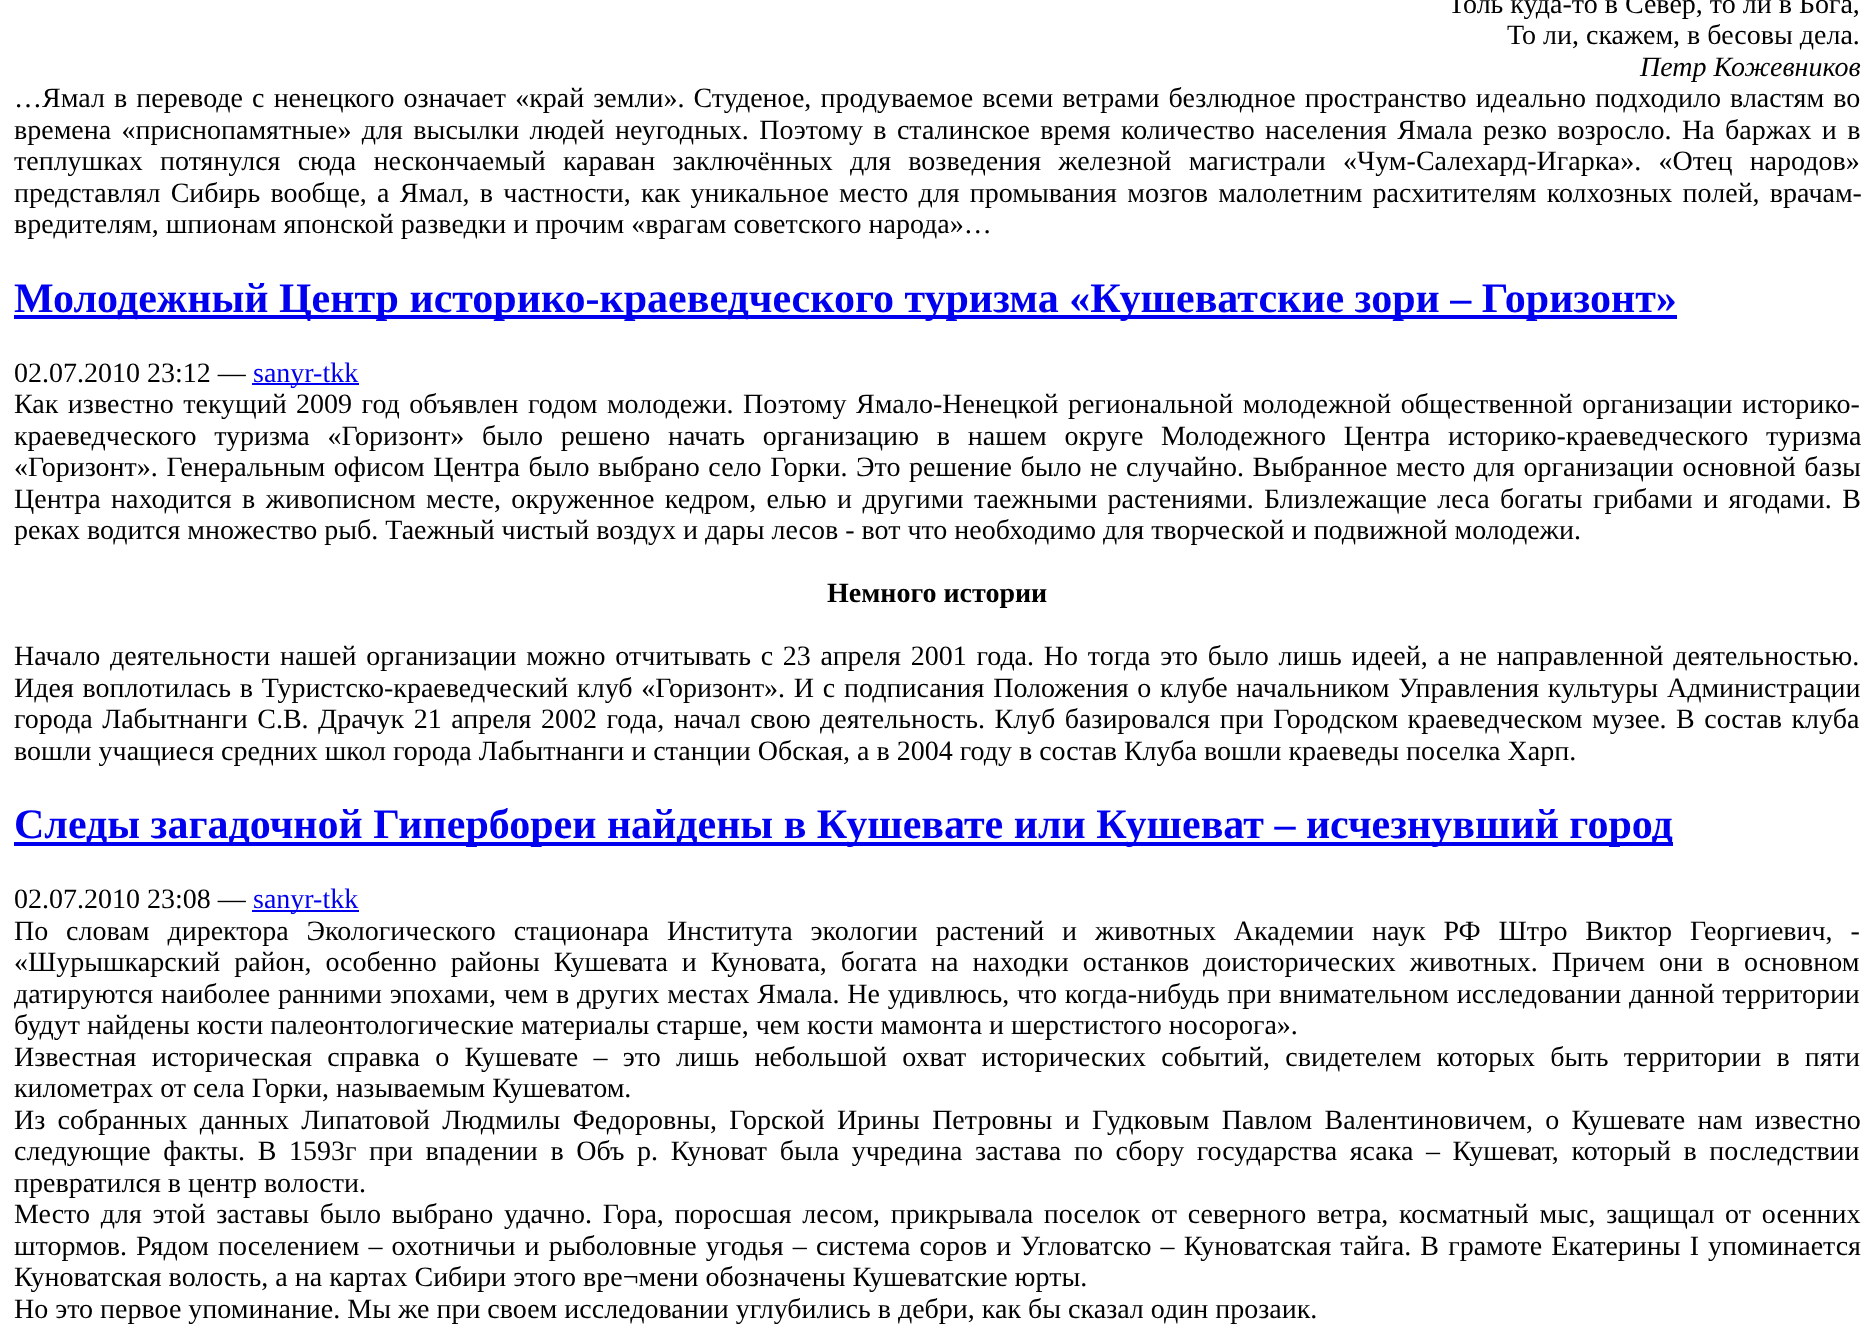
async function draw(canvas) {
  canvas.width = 1873;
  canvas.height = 1335;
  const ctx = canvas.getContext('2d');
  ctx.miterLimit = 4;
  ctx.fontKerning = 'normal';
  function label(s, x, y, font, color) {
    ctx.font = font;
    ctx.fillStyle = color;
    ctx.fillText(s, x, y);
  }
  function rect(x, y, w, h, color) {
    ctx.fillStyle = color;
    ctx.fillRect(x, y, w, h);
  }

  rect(0, 0, 1873, 1335, '#fff');
  label('Толь куда-то в Север, то ли в Бога,', 1448, 13, '28px Liberation Serif', '#000');
  label('То ли, скажем, в бесовы дела.', 1507, 44, '28px Liberation Serif', '#000');
  label('Петр Кожевников', 1640, 76, 'italic 28px Liberation Serif', '#000');
  ctx.wordSpacing = '2.1px';
  label('…Ямал в переводе с ненецкого означает «край земли». Студеное, продуваемое всеми ветрами безлюдное пространство идеально подходило властям во', 14, 107, '28px Liberation Serif', '#000');
  ctx.wordSpacing = '3.4px';
  label('времена «приснопамятные» для высылки людей неугодных. Поэтому в сталинское время количество населения Ямала резко возросло. На баржах и в', 14, 139, '28px Liberation Serif', '#000');
  ctx.wordSpacing = '10.25px';
  label('теплушках потянулся сюда нескончаемый караван заключённых для возведения железной магистрали «Чум-Салехард-Игарка». «Отец народов»', 14, 170, '28px Liberation Serif', '#000');
  ctx.wordSpacing = '3.25px';
  label('представлял Сибирь вообще, а Ямал, в частности, как уникальное место для промывания мозгов малолетним расхитителям колхозных полей, врачам-', 14, 202, '28px Liberation Serif', '#000');
  ctx.wordSpacing = '0px';
  label('вредителям, шпионам японской разведки и прочим «врагам советского народа»…', 14, 233, '28px Liberation Serif', '#000');
  rect(14, 315, 1663, 4, '#00e');
  label('Молодежный Центр историко-краеведческого туризма «Кушеватские зори – Горизонт»', 14, 312, 'bold 42px Liberation Serif', '#00e');
  label('02.07.2010 23:12 —', 14, 382, '28px Liberation Serif', '#000');
  rect(252, 383, 107, 2, '#00e');
  label('sanyr-tkk', 253, 382, '28px Liberation Serif', '#00e');
  ctx.wordSpacing = '2.5px';
  label('Как известно текущий 2009 год объявлен годом молодежи. Поэтому Ямало-Ненецкой региональной молодежной общественной организации историко-', 14, 413, '28px Liberation Serif', '#000');
  ctx.wordSpacing = '10.75px';
  label('краеведческого туризма «Горизонт» было решено начать организацию в нашем округе Молодежного Центра историко-краеведческого туризма', 14, 445, '28px Liberation Serif', '#000');
  ctx.wordSpacing = '1.6px';
  label('«Горизонт». Генеральным офисом Центра было выбрано село Горки. Это решение было не случайно. Выбранное место для организации основной базы', 14, 476, '28px Liberation Serif', '#000');
  ctx.wordSpacing = '3.4px';
  label('Центра находится в живописном месте, окруженное кедром, елью и другими таежными растениями. Близлежащие леса богаты грибами и ягодами. В', 14, 508, '28px Liberation Serif', '#000');
  ctx.wordSpacing = '0px';
  label('реках водится множество рыб. Таежный чистый воздух и дары лесов - вот что необходимо для творческой и подвижной молодежи.', 14, 539, '28px Liberation Serif', '#000');
  label('Немного истории', 827, 602, 'bold 28px Liberation Serif', '#000');
  ctx.wordSpacing = '2.75px';
  label('Начало деятельности нашей организации можно отчитывать с 23 апреля 2001 года. Но тогда это было лишь идеей, а не направленной деятельностью.', 14, 665, '28px Liberation Serif', '#000');
  ctx.wordSpacing = '1.75px';
  label('Идея воплотилась в Туристско-краеведческий клуб «Горизонт». И с подписания Положения о клубе начальником Управления культуры Администрации', 14, 697, '28px Liberation Serif', '#000');
  ctx.wordSpacing = '2.5px';
  label('города Лабытнанги С.В. Драчук 21 апреля 2002 года, начал свою деятельность. Клуб базировался при Городском краеведческом музее. В состав клуба', 14, 728, '28px Liberation Serif', '#000');
  ctx.wordSpacing = '0px';
  label('вошли учащиеся средних школ города Лабытнанги и станции Обская, а в 2004 году в состав Клуба вошли краеведы поселка Харп.', 14, 760, '28px Liberation Serif', '#000');
  rect(14, 842, 1659, 4, '#00e');
  label('Следы загадочной Гипербореи найдены в Кушевате или Кушеват – исчезнувший город', 14, 838, 'bold 42px Liberation Serif', '#00e');
  label('02.07.2010 23:08 —', 14, 908, '28px Liberation Serif', '#000');
  rect(252, 910, 107, 2, '#00e');
  label('sanyr-tkk', 253, 908, '28px Liberation Serif', '#00e');
  ctx.wordSpacing = '10.9px';
  label('По словам директора Экологического стационара Института экологии растений и животных Академии наук РФ Штро Виктор Георгиевич, -', 14, 940, '28px Liberation Serif', '#000');
  ctx.wordSpacing = '6.9px';
  label('«Шурышкарский район, особенно районы Кушевата и Куновата, богата на находки останков доисторических животных. Причем они в основном', 14, 971, '28px Liberation Serif', '#000');
  ctx.wordSpacing = '0.8px';
  label('датируются наиболее ранними эпохами,', 14, 1003, '28px Liberation Serif', '#000');
  label('чем в других местах Ямала. Не удивлюсь, что когда-нибудь при внимательном исследовании данной территории', 504, 1003, '28px Liberation Serif', '#000');
  ctx.wordSpacing = '0px';
  label('будут найдены кости палеонтологические материалы старше, чем кости мамонта и шерстистого носорога».', 14, 1034, '28px Liberation Serif', '#000');
  ctx.wordSpacing = '8.25px';
  label('Известная историческая справка о Кушевате – это лишь небольшой охват исторических событий, свидетелем которых быть территории в пяти', 14, 1066, '28px Liberation Serif', '#000');
  ctx.wordSpacing = '0px';
  label('километрах от села Горки, называемым Кушеватом.', 14, 1097, '28px Liberation Serif', '#000');
  ctx.wordSpacing = '5.25px';
  label('Из собранных данных Липатовой Людмилы Федоровны, Горской Ирины Петровны и Гудковым Павлом Валентиновичем, о Кушевате нам известно', 14, 1129, '28px Liberation Serif', '#000');
  ctx.wordSpacing = '5.6px';
  label('следующие факты. В 1593г при впадении в Объ р. Куноват была учредина застава по сбору государства ясака – Кушеват, который в последствии', 14, 1160, '28px Liberation Serif', '#000');
  ctx.wordSpacing = '0px';
  label('превратился в центр волости.', 14, 1192, '28px Liberation Serif', '#000');
  ctx.wordSpacing = '3.75px';
  label('Место для этой заставы было выбрано удачно. Гора, поросшая лесом, прикрывала поселок от северного ветра, косматный мыс, защищал от осенних', 14, 1223, '28px Liberation Serif', '#000');
  ctx.wordSpacing = '2.1px';
  label('штормов. Рядом поселением – охотничьи и рыболовные угодья – система соров и Угловатско – Куноватская тайга. В грамоте Екатерины I упоминается', 14, 1255, '28px Liberation Serif', '#000');
  ctx.wordSpacing = '0px';
  label('Куноватская волость, а на картах Сибири этого вре¬мени обозначены Кушеватские юрты.', 14, 1286, '28px Liberation Serif', '#000');
  label('Но это первое упоминание. Мы же при своем исследовании углубились в дебри, как бы сказал один прозаик.', 14, 1318, '28px Liberation Serif', '#000');
}

draw(document.querySelector('canvas'));
